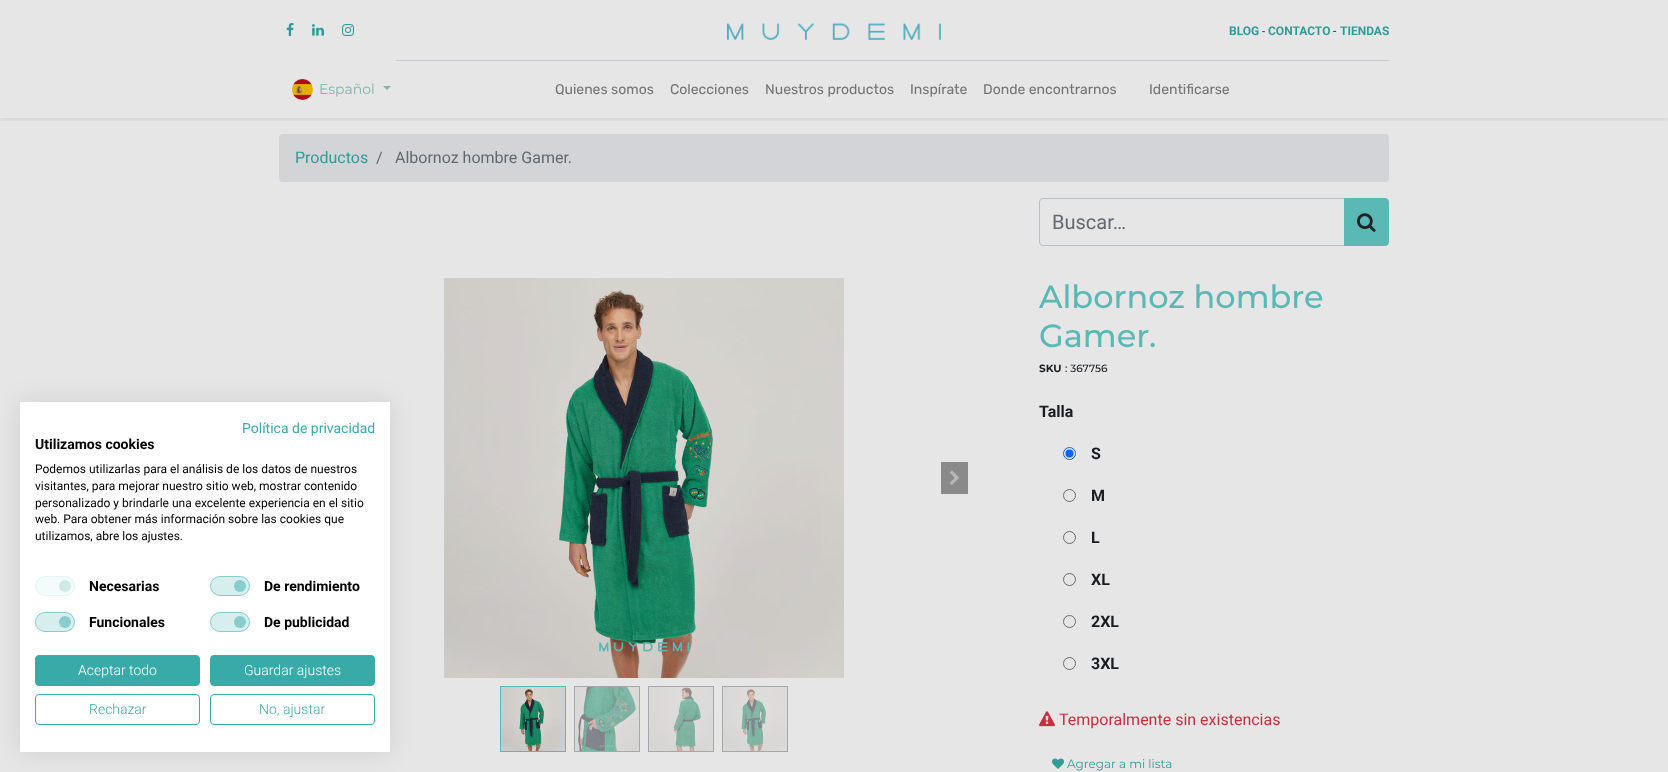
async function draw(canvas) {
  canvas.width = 1668;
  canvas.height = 772;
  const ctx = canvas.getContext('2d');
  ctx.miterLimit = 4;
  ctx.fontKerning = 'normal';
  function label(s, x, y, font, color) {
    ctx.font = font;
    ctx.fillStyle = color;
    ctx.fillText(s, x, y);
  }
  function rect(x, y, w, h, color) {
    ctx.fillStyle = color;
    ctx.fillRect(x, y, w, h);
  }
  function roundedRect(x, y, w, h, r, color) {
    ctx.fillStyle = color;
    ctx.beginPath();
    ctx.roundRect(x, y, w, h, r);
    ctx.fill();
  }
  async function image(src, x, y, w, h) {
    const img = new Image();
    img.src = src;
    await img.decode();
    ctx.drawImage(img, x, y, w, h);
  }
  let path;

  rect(0, 0, 1668, 772, '#e6e6e6');
  ctx.fillStyle = '#0000001a';
  ctx.filter = 'blur(12px)';
  ctx.beginPath();
  ctx.rect(20, 402, 370, 350);
  ctx.fill();
  ctx.filter = 'none';
  rect(20, 402, 370, 350, '#fff');
  label('Política de privacidad', 242, 433, '14px Roboto', '#38aba8');
  label('Utilizamos cookies', 35, 449, 'bold 14px Roboto', '#000');
  label('Podemos utilizarlas para el análisis de los datos de nuestros', 35, 473, '12px Roboto', '#000');
  label('visitantes, para mejorar nuestro sitio web, mostrar contenido', 35, 490, '12px Roboto', '#000');
  label('personalizado y brindarle una excelente experiencia en el sitio', 35, 507, '12px Roboto', '#000');
  label('web. Para obtener más información sobre las cookies que', 35, 523, '12px Roboto', '#000');
  label('utilizamos, abre los ajustes.', 35, 540, '12px Roboto', '#000');
  roundedRect(35, 576, 40, 20, 10, '#f5fbfb');
  ctx.fillStyle = '#cdeae9';
  ctx.beginPath();
  ctx.arc(65, 586, 6, 0, 2 * Math.PI);
  ctx.fill();
  ctx.beginPath();
  ctx.roundRect(35.5, 576.5, 39, 19, 9.5);
  ctx.strokeStyle = '#e6f5f4';
  ctx.stroke();
  label('Necesarias', 89, 591, 'bold 14px Roboto', '#000');
  roundedRect(210, 576, 40, 20, 10, '#d7eeee');
  ctx.fillStyle = '#88cdcb';
  ctx.beginPath();
  ctx.arc(240, 586, 6, 0, 2 * Math.PI);
  ctx.fill();
  ctx.beginPath();
  ctx.roundRect(210.5, 576.5, 39, 19, 9.5);
  ctx.strokeStyle = '#38aba880';
  ctx.stroke();
  label('De rendimiento', 264, 591, 'bold 14px Roboto', '#000');
  roundedRect(35, 612, 40, 20, 10, '#d7eeee');
  ctx.fillStyle = '#88cdcb';
  ctx.beginPath();
  ctx.arc(65, 622, 6, 0, 2 * Math.PI);
  ctx.fill();
  ctx.beginPath();
  ctx.roundRect(35.5, 612.5, 39, 19, 9.5);
  ctx.stroke();
  label('Funcionales', 89, 627, 'bold 14px Roboto', '#000');
  roundedRect(210, 612, 40, 20, 10, '#d7eeee');
  ctx.fillStyle = '#88cdcb';
  ctx.beginPath();
  ctx.arc(240, 622, 6, 0, 2 * Math.PI);
  ctx.fill();
  ctx.beginPath();
  ctx.roundRect(210.5, 612.5, 39, 19, 9.5);
  ctx.stroke();
  label('De publicidad', 264, 627, 'bold 14px Roboto', '#000');
  ctx.fillStyle = '#38aba8';
  ctx.beginPath();
  ctx.roundRect(35.5, 655.5, 164, 30, 3.5);
  ctx.fill();
  ctx.strokeStyle = '#38aba8';
  ctx.stroke();
  label('Aceptar todo', 78, 675, '300 14px Roboto', '#fff');
  ctx.fillStyle = '#38aba8';
  ctx.beginPath();
  ctx.roundRect(210.5, 655.5, 164, 30, 3.5);
  ctx.fill();
  ctx.stroke();
  label('Guardar ajustes', 244, 675, '300 14px Roboto', '#fff');
  ctx.beginPath();
  ctx.roundRect(35.5, 694.5, 164, 30, 3.5);
  ctx.stroke();
  label('Rechazar', 89, 714, '300 14px Roboto', '#38aba8');
  ctx.beginPath();
  ctx.roundRect(210.5, 694.5, 164, 30, 3.5);
  ctx.stroke();
  label('No, ajustar', 259, 714, '300 14px Roboto', '#38aba8');
  ctx.save();
  ctx.beginPath();
  ctx.rect(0, 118, 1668, 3);
  ctx.clip();
  ctx.fillStyle = '#00000012';
  ctx.filter = 'blur(2px)';
  ctx.beginPath();
  ctx.rect(0, 2, 1668, 118);
  ctx.fill();
  ctx.filter = 'none';
  ctx.restore();
  await image('assets/img1.png', 286, 23, 8, 13);
  await image('assets/img2.png', 312, 24, 12, 12);
  await image('assets/img3.png', 342, 24, 12, 12);
  await image('assets/img4.png', 727, 22, 214, 18);
  label('BLOG', 1229, 35, 'bold 12px Roboto', '#329a97');
  label('-', 1262, 35, '11px Roboto', '#1a1e23');
  label('CONTACTO', 1268, 35, 'bold 12px Roboto', '#329a97');
  label('-', 1333, 35, '12px Roboto', '#1a1e23');
  label('TIENDAS', 1340, 35, 'bold 12px Roboto', '#329a97');
  await image('assets/img5.png', 292, 79, 21, 21);
  label('Español', 319, 94, '14px Montserrat', '#80b3b0');
  path = new Path2D('M383 86H391L387 90Z');
  ctx.fill(path);
  rect(396, 60, 993, 1, '#c8cbcf');
  label('Quienes somos', 555, 94, '14px Rubik', '#737373');
  label('Colecciones', 670, 94, '14px Rubik', '#737373');
  label('Nuestros productos', 765, 94, '14px Rubik', '#737373');
  label('Inspírate', 910, 94, '14px Rubik', '#737373');
  label('Donde encontrarnos', 983, 94, '14px Rubik', '#737373');
  label('Identificarse', 1149, 94, '14px Rubik', '#737373');
  roundedRect(279, 134, 1110, 48, 4, '#d2d4d7');
  label('Productos', 295, 163, '16px Roboto', '#329a97');
  label('/', 376, 163, '16px Roboto', '#616971');
  label('Albornoz hombre Gamer.', 395, 163, '16px Roboto', '#616971');
  ctx.beginPath();
  ctx.roundRect(1039.5, 198.5, 305, 47, [3.5, 0, 0, 3.5]);
  ctx.strokeStyle = '#b9bfc4';
  ctx.stroke();
  label('Buscar…', 1052, 229, '20px Roboto', '#616971');
  ctx.fillStyle = '#5ab8b5';
  ctx.beginPath();
  ctx.roundRect(1344.5, 198.5, 44, 47, [0, 3.5, 3.5, 0]);
  ctx.fill();
  ctx.strokeStyle = '#5ab8b5';
  ctx.stroke();
  await image('assets/img6.png', 1357, 213, 19, 19);
  await image('assets/img7.png', 444, 278, 400, 400);
  rect(941, 462, 27, 32, '#8a8a8a');
  await image('assets/img8.png', 949, 470, 10, 15);
  ctx.strokeRect(500.5, 686.5, 65, 65);
  await image('assets/img9.png', 501, 687, 64, 64);
  ctx.strokeStyle = '#a4a7ab';
  ctx.strokeRect(574.5, 686.5, 65, 65);
  await image('assets/img10.png', 575, 687, 64, 64);
  ctx.strokeRect(648.5, 686.5, 65, 65);
  await image('assets/img11.png', 649, 687, 64, 64);
  ctx.strokeRect(722.5, 686.5, 65, 65);
  await image('assets/img12.png', 723, 687, 64, 64);
  label('Albornoz hombre', 1039, 308, '500 32px Montserrat', '#5ab8b5');
  label('Gamer.', 1039, 347, '500 32px Montserrat', '#5ab8b5');
  label('SKU', 1039, 372, 'bold 10.5px Montserrat', '#1a1e23');
  label(': 367756', 1065, 372, '500 10.5px Montserrat', '#1a1e23');
  label('Talla', 1039, 417, 'bold 16px Roboto', '#1a1e23');
  ctx.beginPath();
  ctx.arc(1069.5, 453.5, 6, 0, 2 * Math.PI);
  ctx.strokeStyle = '#0069e6';
  ctx.stroke();
  ctx.fillStyle = '#0069e6';
  ctx.beginPath();
  ctx.arc(1069.5, 453.5, 4, 0, 2 * Math.PI);
  ctx.fill();
  label('S', 1091, 459, 'bold 16px Roboto', '#1a1e23');
  ctx.beginPath();
  ctx.arc(1069.5, 495.5, 6, 0, 2 * Math.PI);
  ctx.strokeStyle = '#6a6a6a';
  ctx.stroke();
  label('M', 1091, 501, 'bold 16px Roboto', '#1a1e23');
  ctx.beginPath();
  ctx.arc(1069.5, 537.5, 6, 0, 2 * Math.PI);
  ctx.stroke();
  label('L', 1091, 543, 'bold 16px Roboto', '#1a1e23');
  ctx.beginPath();
  ctx.arc(1069.5, 579.5, 6, 0, 2 * Math.PI);
  ctx.stroke();
  label('XL', 1091, 585, 'bold 16px Roboto', '#1a1e23');
  ctx.beginPath();
  ctx.arc(1069.5, 621.5, 6, 0, 2 * Math.PI);
  ctx.stroke();
  label('2XL', 1091, 627, 'bold 16px Roboto', '#1a1e23');
  ctx.beginPath();
  ctx.arc(1069.5, 663.5, 6, 0, 2 * Math.PI);
  ctx.stroke();
  label('3XL', 1091, 669, 'bold 16px Roboto', '#1a1e23');
  await image('assets/img13.png', 1039, 711, 16, 16);
  label('Temporalmente sin existencias', 1059, 725, '16px Roboto', '#c6303e');
  await image('assets/img14.png', 1052, 758, 12, 11);
  label('Agregar a mi lista', 1067, 768, '12px Montserrat', '#329a97');
}

draw(document.querySelector('canvas'));
